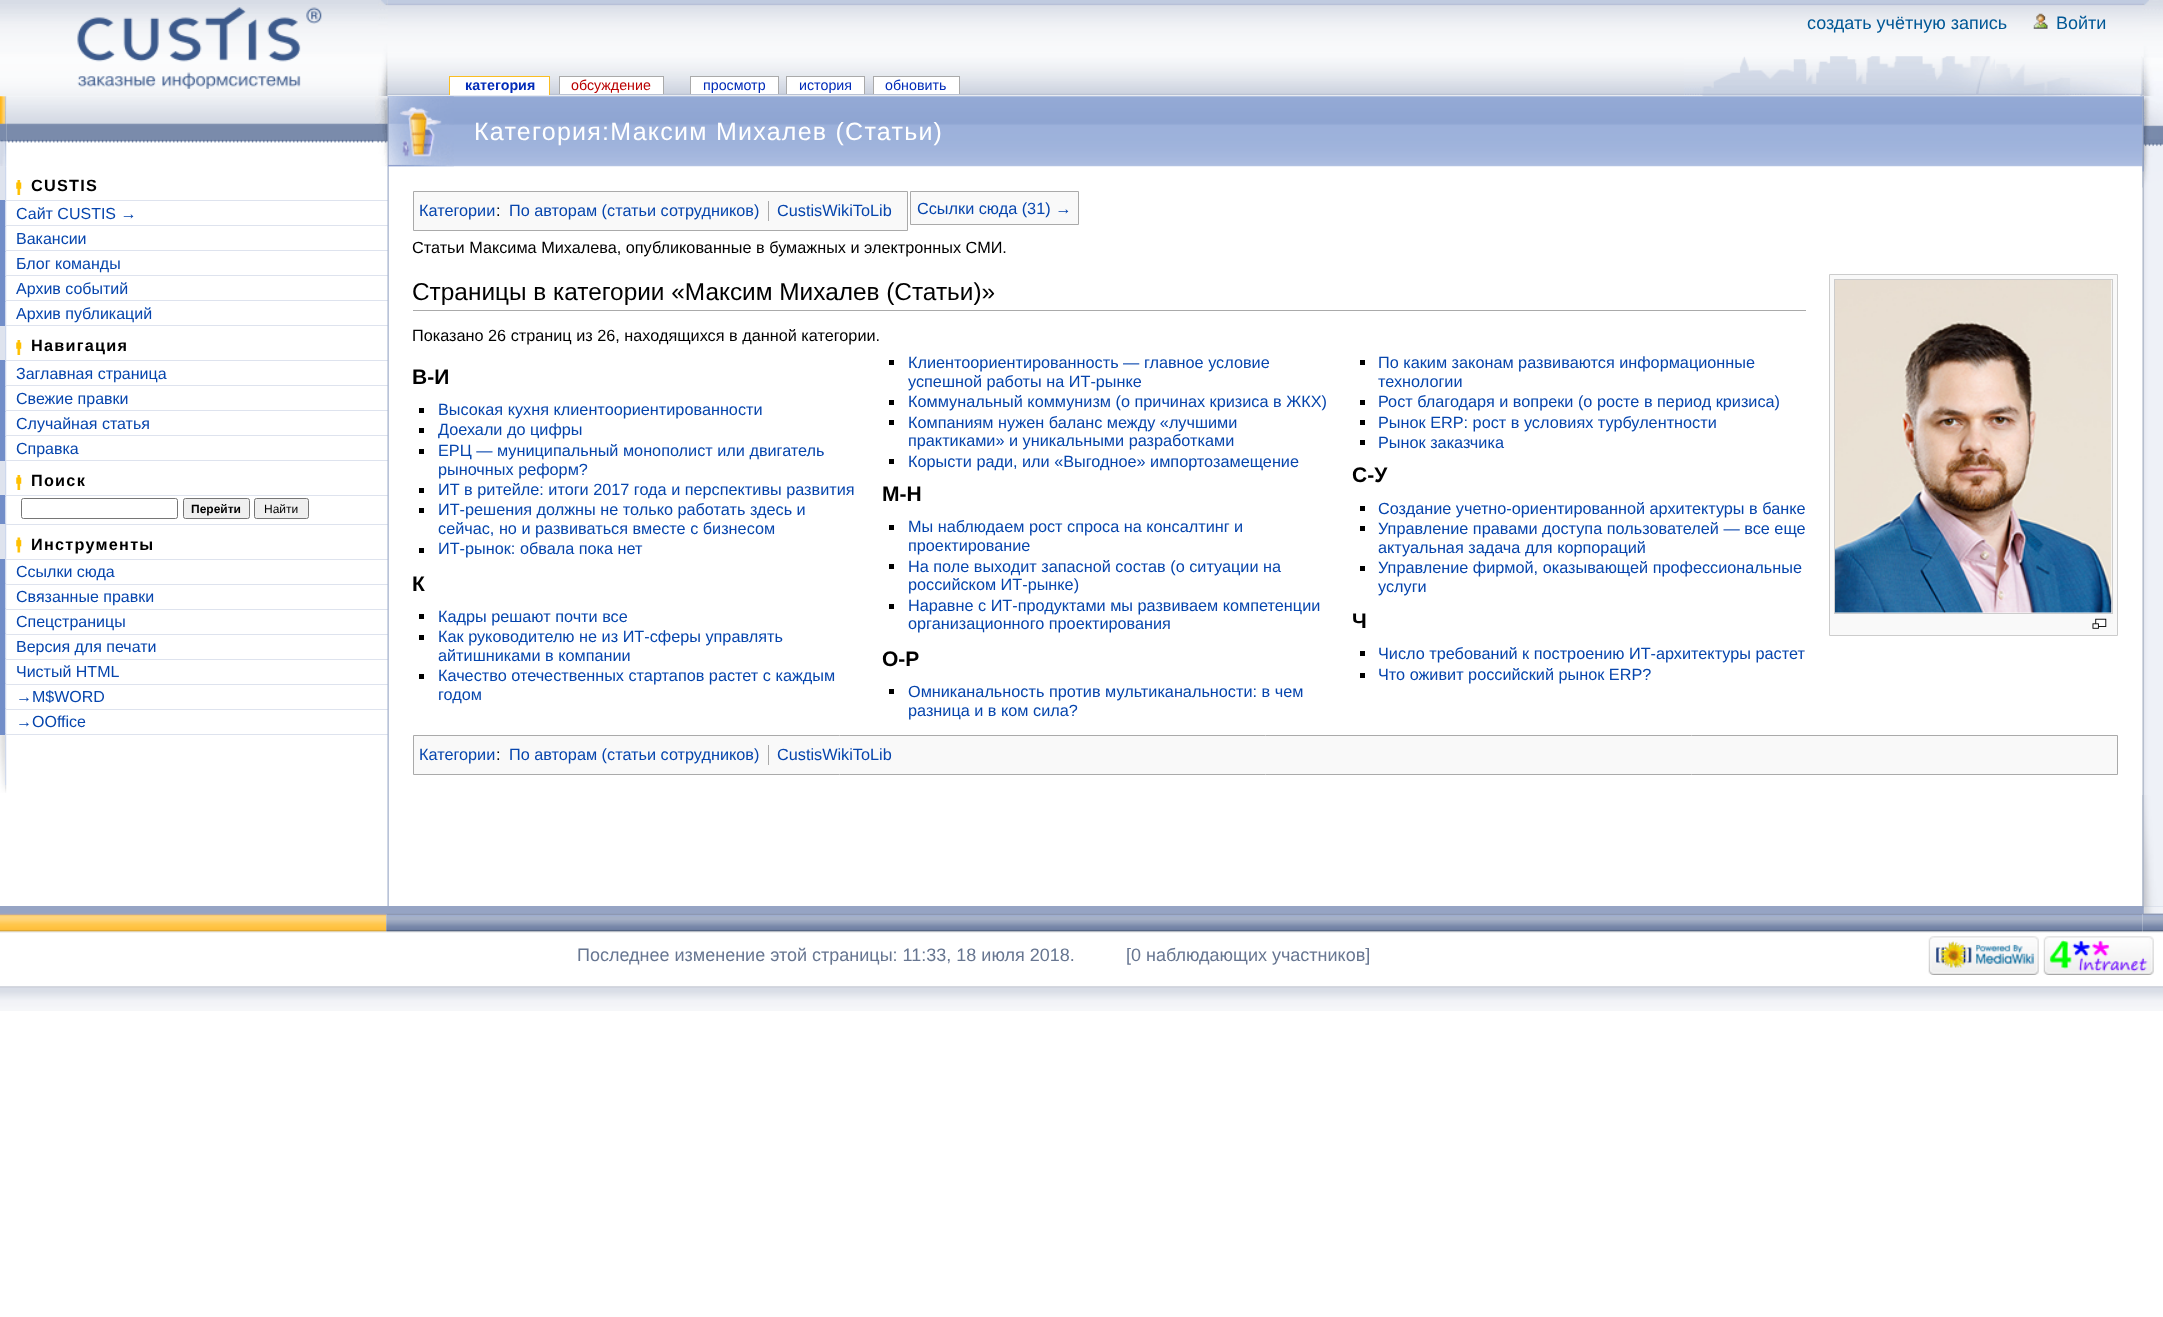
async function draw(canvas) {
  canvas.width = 2163;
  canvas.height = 1317;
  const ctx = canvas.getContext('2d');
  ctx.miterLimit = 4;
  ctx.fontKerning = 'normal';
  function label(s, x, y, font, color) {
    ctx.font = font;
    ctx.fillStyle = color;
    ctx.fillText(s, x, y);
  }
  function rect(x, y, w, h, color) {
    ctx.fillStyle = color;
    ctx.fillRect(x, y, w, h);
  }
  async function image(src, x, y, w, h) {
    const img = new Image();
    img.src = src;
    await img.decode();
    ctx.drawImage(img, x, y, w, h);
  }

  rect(0, 0, 2163, 1317, '#fff');
  await image('assets/img1.png', 0, 0, 2163, 97);
  await image('assets/img2.png', 0, 0, 388, 96);
  await image('assets/img3.png', 77, 7, 245, 82);
  await image('assets/img9.png', 6, 96, 382, 47);
  rect(0, 200, 6, 1, '#728ec9');
  await image('assets/img13.png', 5, 200, 2, 2);
  rect(6, 200, 382, 1, '#dee3ee');
  rect(0, 201, 6, 25, '#728ec9');
  await image('assets/img13.png', 5, 225, 2, 2);
  rect(6, 225, 382, 1, '#dee3ee');
  rect(0, 226, 6, 25, '#728ec9');
  await image('assets/img13.png', 5, 250, 2, 2);
  rect(6, 250, 382, 1, '#dee3ee');
  rect(0, 251, 6, 25, '#728ec9');
  await image('assets/img13.png', 5, 275, 2, 2);
  rect(6, 275, 382, 1, '#dee3ee');
  rect(0, 276, 6, 25, '#728ec9');
  await image('assets/img13.png', 5, 300, 2, 2);
  rect(6, 300, 382, 1, '#dee3ee');
  rect(0, 301, 6, 25, '#728ec9');
  await image('assets/img13.png', 5, 325, 2, 2);
  rect(6, 325, 382, 1, '#dee3ee');
  rect(0, 360, 6, 1, '#728ec9');
  await image('assets/img13.png', 5, 360, 2, 2);
  rect(6, 360, 382, 1, '#dee3ee');
  rect(0, 361, 6, 25, '#728ec9');
  await image('assets/img13.png', 5, 385, 2, 2);
  rect(6, 385, 382, 1, '#dee3ee');
  rect(0, 386, 6, 25, '#728ec9');
  await image('assets/img13.png', 5, 410, 2, 2);
  rect(6, 410, 382, 1, '#dee3ee');
  rect(0, 411, 6, 25, '#728ec9');
  await image('assets/img13.png', 5, 435, 2, 2);
  rect(6, 435, 382, 1, '#dee3ee');
  rect(0, 436, 6, 25, '#728ec9');
  await image('assets/img13.png', 5, 460, 2, 2);
  rect(6, 460, 382, 1, '#dee3ee');
  rect(0, 495, 6, 1, '#728ec9');
  await image('assets/img13.png', 5, 495, 2, 2);
  rect(6, 495, 382, 1, '#dee3ee');
  rect(0, 496, 6, 28, '#728ec9');
  await image('assets/img16.png', 5, 496, 2, 28);
  rect(0, 524, 6, 35, '#dee3ee');
  await image('assets/img17.png', 5, 523, 2, 2);
  rect(6, 524, 382, 1, '#dee3ee');
  rect(6, 559, 382, 1, '#dee3ee');
  rect(0, 559, 6, 176, '#728ec9');
  await image('assets/img21.png', 5, 560, 2, 24);
  await image('assets/img17.png', 5, 583, 2, 2);
  rect(6, 584, 382, 1, '#dee3ee');
  await image('assets/img21.png', 5, 585, 2, 24);
  await image('assets/img17.png', 5, 608, 2, 2);
  rect(6, 609, 382, 1, '#dee3ee');
  await image('assets/img21.png', 5, 610, 2, 24);
  await image('assets/img17.png', 5, 633, 2, 2);
  rect(6, 634, 382, 1, '#dee3ee');
  await image('assets/img21.png', 5, 635, 2, 24);
  await image('assets/img17.png', 5, 658, 2, 2);
  rect(6, 659, 382, 1, '#dee3ee');
  await image('assets/img21.png', 5, 660, 2, 24);
  await image('assets/img17.png', 5, 683, 2, 2);
  rect(6, 684, 382, 1, '#dee3ee');
  await image('assets/img21.png', 5, 685, 2, 24);
  await image('assets/img17.png', 5, 708, 2, 2);
  rect(6, 709, 382, 1, '#dee3ee');
  await image('assets/img21.png', 5, 710, 2, 24);
  await image('assets/img17.png', 5, 733, 2, 2);
  rect(6, 734, 382, 1, '#dee3ee');
  rect(388, 96, 1755, 1, '#fff');
  await image('assets/img23.png', 387, 96, 2, 810);
  await image('assets/img24.png', 387, 96, 1756, 71);
  await image('assets/img25.png', 387, 96, 67, 71);
  await image('assets/img4.png', 378, 0, 10, 97);
  label('создать учётную запись', 1807, 29, '18px Liberation Sans', '#005896');
  await image('assets/img5.png', 2033, 13, 15, 16);
  label('Войти', 2056, 29, '18px Liberation Sans', '#005896');
  await image('assets/img7.png', 1684, 56, 459, 40);
  await image('assets/img28.png', 2142, 96, 21, 699);
  await image('assets/img6.png', 2142, 0, 21, 97);
  rect(450, 77, 99, 18, '#fff');
  label('категория', 465, 90, 'bold 14.25px Liberation Sans', '#002bb8');
  rect(449, 76, 101, 1, '#fabd23');
  rect(549, 76, 1, 19, '#fabd23');
  rect(449, 76, 1, 19, '#fabd23');
  rect(560, 77, 103, 17, '#fff');
  label('обсуждение', 571, 90, '14.25px Liberation Sans', '#ba0000');
  rect(559, 76, 105, 1, '#aaa');
  rect(663, 76, 1, 18, '#aaa');
  rect(559, 76, 1, 18, '#aaa');
  rect(691, 77, 87, 17, '#fff');
  label('просмотр', 703, 90, '14.25px Liberation Sans', '#002bb8');
  rect(690, 76, 89, 1, '#aaa');
  rect(778, 76, 1, 18, '#aaa');
  rect(690, 76, 1, 18, '#aaa');
  rect(787, 77, 77, 17, '#fff');
  label('история', 799, 90, '14.25px Liberation Sans', '#002bb8');
  rect(786, 76, 79, 1, '#aaa');
  rect(864, 76, 1, 18, '#aaa');
  rect(786, 76, 1, 18, '#aaa');
  rect(874, 77, 85, 17, '#fff');
  label('обновить', 885, 90, '14.25px Liberation Sans', '#002bb8');
  rect(873, 76, 87, 1, '#aaa');
  rect(959, 76, 1, 18, '#aaa');
  rect(873, 76, 1, 18, '#aaa');
  await image('assets/img8.png', 0, 96, 7, 70);
  await image('assets/img10.png', 375, 96, 13, 71);
  rect(0, 166, 6, 34, '#dee3ee');
  await image('assets/img11.png', 5, 166, 2, 34);
  await image('assets/img12.png', 16, 180, 6, 15);
  ctx.letterSpacing = '1.25px';
  label('CUSTIS', 31, 191, 'bold 16.25px Liberation Sans', '#000');
  await image('assets/img14.png', 5, 201, 2, 24);
  ctx.letterSpacing = '0px';
  label('Сайт CUSTIS →', 16, 219, '16px Liberation Sans', '#0645ad');
  await image('assets/img14.png', 5, 226, 2, 24);
  label('Вакансии', 16, 244, '16px Liberation Sans', '#0645ad');
  await image('assets/img14.png', 5, 251, 2, 24);
  label('Блог команды', 16, 269, '16px Liberation Sans', '#0645ad');
  await image('assets/img14.png', 5, 276, 2, 24);
  label('Архив событий', 16, 294, '16px Liberation Sans', '#0645ad');
  await image('assets/img14.png', 5, 301, 2, 24);
  label('Архив публикаций', 16, 319, '16px Liberation Sans', '#0645ad');
  rect(0, 326, 6, 34, '#dee3ee');
  await image('assets/img15.png', 5, 326, 2, 34);
  await image('assets/img12.png', 16, 340, 6, 15);
  ctx.letterSpacing = '1.25px';
  label('Навигация', 31, 351, 'bold 16.25px Liberation Sans', '#000');
  await image('assets/img14.png', 5, 361, 2, 24);
  ctx.letterSpacing = '0px';
  label('Заглавная страница', 16, 379, '16px Liberation Sans', '#0645ad');
  await image('assets/img14.png', 5, 386, 2, 24);
  label('Свежие правки', 16, 404, '16px Liberation Sans', '#0645ad');
  await image('assets/img14.png', 5, 411, 2, 24);
  label('Случайная статья', 16, 429, '16px Liberation Sans', '#0645ad');
  await image('assets/img14.png', 5, 436, 2, 24);
  label('Справка', 16, 454, '16px Liberation Sans', '#0645ad');
  rect(0, 461, 6, 34, '#dee3ee');
  await image('assets/img15.png', 5, 461, 2, 34);
  await image('assets/img12.png', 16, 475, 6, 15);
  ctx.letterSpacing = '1.25px';
  label('Поиск', 31, 486, 'bold 16.25px Liberation Sans', '#000');
  ctx.beginPath();
  ctx.roundRect(21.5, 498.5, 156, 20, 2);
  ctx.strokeStyle = '#767676';
  ctx.stroke();
  ctx.fillStyle = '#efefef';
  ctx.beginPath();
  ctx.roundRect(183.5, 498.5, 66, 20, 2);
  ctx.fill();
  ctx.stroke();
  ctx.letterSpacing = '0px';
  label('Перейти', 191, 513, 'bold 12px Liberation Sans', '#000');
  ctx.fillStyle = '#efefef';
  ctx.beginPath();
  ctx.roundRect(254.5, 498.5, 54, 20, 2);
  ctx.fill();
  ctx.stroke();
  label('Найти', 264, 513, '12px Liberation Sans', '#000');
  await image('assets/img18.png', 5, 525, 2, 34);
  await image('assets/img19.png', 16, 537, 6, 16);
  ctx.letterSpacing = '1.25px';
  label('Инструменты', 31, 550, 'bold 16.25px Liberation Sans', '#000');
  await image('assets/img20.png', 5, 559, 1, 1);
  ctx.letterSpacing = '0px';
  label('Ссылки сюда', 16, 577, '16px Liberation Sans', '#0645ad');
  label('Связанные правки', 16, 602, '16px Liberation Sans', '#0645ad');
  label('Спецстраницы', 16, 627, '16px Liberation Sans', '#0645ad');
  label('Версия для печати', 16, 652, '16px Liberation Sans', '#0645ad');
  label('Чистый HTML', 16, 677, '16px Liberation Sans', '#0645ad');
  label('→M$WORD', 16, 702, '16px Liberation Sans', '#0645ad');
  label('→OOffice', 16, 727, '16px Liberation Sans', '#0645ad');
  await image('assets/img22.png', 0, 735, 7, 58);
  ctx.letterSpacing = '1.25px';
  label('Категория:Максим Михалев (Статьи)', 474, 140, '25px Liberation Sans', '#fff');
  ctx.fillStyle = '#f9f9f9';
  ctx.beginPath();
  ctx.rect(910.5, 191.5, 168, 33);
  ctx.fill();
  ctx.strokeStyle = '#aaa';
  ctx.stroke();
  ctx.letterSpacing = '0px';
  label('Ссылки сюда (31) →', 917, 214, '16.25px Liberation Sans', '#0645ad');
  label('Статьи Максима Михалева, опубликованные в бумажных и электронных СМИ.', 412, 253, '16.25px Liberation Sans', '#000');
  rect(413, 310, 1393, 1, '#aaa');
  label('Страницы в категории «Максим Михалев (Статьи)»', 412, 300, '24.4px Liberation Sans', '#000');
  label('Показано 26 страниц из 26, находящихся в данной категории.', 412, 341, '16.25px Liberation Sans', '#000');
  label('К', 412, 591, 'bold 21px Liberation Sans', '#000');
  rect(889, 360, 5, 5, '#000');
  label('Клиентоориентированность — главное условие', 908, 368, '16.25px Liberation Sans', '#0645ad');
  label('успешной работы на ИТ-рынке', 908, 387, '16.25px Liberation Sans', '#0645ad');
  rect(889, 400, 5, 5, '#000');
  label('Коммунальный коммунизм (о причинах кризиса в ЖКХ)', 908, 407, '16.25px Liberation Sans', '#0645ad');
  rect(889, 420, 5, 5, '#000');
  label('Компаниям нужен баланс между «лучшими', 908, 428, '16.25px Liberation Sans', '#0645ad');
  label('практиками» и уникальными разработками', 908, 446, '16.25px Liberation Sans', '#0645ad');
  rect(889, 459, 5, 5, '#000');
  label('Корысти ради, или «Выгодное» импортозамещение', 908, 467, '16.25px Liberation Sans', '#0645ad');
  rect(419, 614, 5, 5, '#000');
  label('Кадры решают почти все', 438, 622, '16.25px Liberation Sans', '#0645ad');
  rect(419, 635, 5, 5, '#000');
  label('Как руководителю не из ИТ-сферы управлять', 438, 642, '16.25px Liberation Sans', '#0645ad');
  label('айтишниками в компании', 438, 661, '16.25px Liberation Sans', '#0645ad');
  rect(419, 674, 5, 5, '#000');
  label('Качество отечественных стартапов растет с каждым', 438, 681, '16.25px Liberation Sans', '#0645ad');
  label('годом', 438, 700, '16.25px Liberation Sans', '#0645ad');
  label('О-Р', 882, 666, 'bold 21px Liberation Sans', '#000');
  rect(1360, 360, 5, 5, '#000');
  label('По каким законам развиваются информационные', 1378, 368, '16.25px Liberation Sans', '#0645ad');
  label('технологии', 1378, 387, '16.25px Liberation Sans', '#0645ad');
  rect(1360, 400, 5, 5, '#000');
  label('Рост благодаря и вопреки (о росте в период кризиса)', 1378, 407, '16.25px Liberation Sans', '#0645ad');
  rect(1360, 420, 5, 5, '#000');
  label('Рынок ERP: рост в условиях турбулентности', 1378, 428, '16.25px Liberation Sans', '#0645ad');
  rect(1360, 440, 5, 5, '#000');
  label('Рынок заказчика', 1378, 448, '16.25px Liberation Sans', '#0645ad');
  rect(889, 689, 5, 5, '#000');
  label('Омниканальность против мультиканальности: в чем', 908, 697, '16.25px Liberation Sans', '#0645ad');
  label('разница и в ком сила?', 908, 716, '16.25px Liberation Sans', '#0645ad');
  label('В-И', 412, 384, 'bold 21px Liberation Sans', '#000');
  rect(419, 408, 5, 5, '#000');
  label('Высокая кухня клиентоориентированности', 438, 415, '16.25px Liberation Sans', '#0645ad');
  rect(419, 428, 5, 5, '#000');
  label('Доехали до цифры', 438, 435, '16.25px Liberation Sans', '#0645ad');
  rect(419, 449, 5, 5, '#000');
  label('ЕРЦ — муниципальный монополист или двигатель', 438, 456, '16.25px Liberation Sans', '#0645ad');
  label('рыночных реформ?', 438, 475, '16.25px Liberation Sans', '#0645ad');
  rect(419, 488, 5, 5, '#000');
  label('ИТ в ритейле: итоги 2017 года и перспективы развития', 438, 495, '16.25px Liberation Sans', '#0645ad');
  rect(419, 508, 5, 5, '#000');
  label('ИТ-решения должны не только работать здесь и', 438, 515, '16.25px Liberation Sans', '#0645ad');
  label('сейчас, но и развиваться вместе с бизнесом', 438, 534, '16.25px Liberation Sans', '#0645ad');
  rect(419, 548, 5, 5, '#000');
  label('ИТ-рынок: обвала пока нет', 438, 554, '16.25px Liberation Sans', '#0645ad');
  label('М-Н', 882, 501, 'bold 21px Liberation Sans', '#000');
  rect(889, 525, 5, 5, '#000');
  label('Мы наблюдаем рост спроса на консалтинг и', 908, 532, '16.25px Liberation Sans', '#0645ad');
  label('проектирование', 908, 551, '16.25px Liberation Sans', '#0645ad');
  rect(889, 564, 5, 5, '#000');
  label('На поле выходит запасной состав (о ситуации на', 908, 572, '16.25px Liberation Sans', '#0645ad');
  label('российском ИТ-рынке)', 908, 590, '16.25px Liberation Sans', '#0645ad');
  rect(889, 604, 5, 5, '#000');
  label('Наравне с ИТ-продуктами мы развиваем компетенции', 908, 611, '16.25px Liberation Sans', '#0645ad');
  label('организационного проектирования', 908, 629, '16.25px Liberation Sans', '#0645ad');
  label('С-У', 1352, 482, 'bold 21px Liberation Sans', '#000');
  rect(1360, 506, 5, 5, '#000');
  label('Создание учетно-ориентированной архитектуры в банке', 1378, 514, '16.25px Liberation Sans', '#0645ad');
  rect(1360, 526, 5, 5, '#000');
  label('Управление правами доступа пользователей — все еще', 1378, 534, '16.25px Liberation Sans', '#0645ad');
  label('актуальная задача для корпораций', 1378, 553, '16.25px Liberation Sans', '#0645ad');
  rect(1360, 566, 5, 5, '#000');
  label('Управление фирмой, оказывающей профессиональные', 1378, 573, '16.25px Liberation Sans', '#0645ad');
  label('услуги', 1378, 592, '16.25px Liberation Sans', '#0645ad');
  label('Ч', 1352, 628, 'bold 21px Liberation Sans', '#000');
  rect(1360, 651, 5, 5, '#000');
  label('Число требований к построению ИТ-архитектуры растет', 1378, 659, '16.25px Liberation Sans', '#0645ad');
  rect(1360, 673, 5, 5, '#000');
  label('Что оживит российский рынок ERP?', 1378, 680, '16.25px Liberation Sans', '#0645ad');
  ctx.fillStyle = '#f9f9f9';
  ctx.beginPath();
  ctx.rect(1829.5, 274.5, 288, 361);
  ctx.fill();
  ctx.strokeStyle = '#ccc';
  ctx.stroke();
  ctx.strokeRect(1834.5, 279.5, 278, 334);
  await image('assets/img26.png', 1835, 280, 277, 333);
  await image('assets/img27.png', 2092, 618, 15, 11);
  ctx.beginPath();
  ctx.rect(413.5, 191.5, 494, 39);
  ctx.fill();
  ctx.strokeStyle = '#aaa';
  ctx.stroke();
  label('Категории', 419, 216, '16.25px Liberation Sans', '#0645ad');
  label(':', 496, 216, '16.25px Liberation Sans', '#000');
  label('По авторам (статьи сотрудников)', 509, 216, '16.25px Liberation Sans', '#0645ad');
  rect(768, 201, 1, 20, '#aaa');
  label('CustisWikiToLib', 777, 216, '16.25px Liberation Sans', '#0645ad');
  ctx.fillStyle = '#f9f9f9';
  ctx.beginPath();
  ctx.rect(413.5, 735.5, 1704, 39);
  ctx.fill();
  ctx.stroke();
  label('Категории', 419, 760, '16.25px Liberation Sans', '#0645ad');
  label(':', 496, 760, '16.25px Liberation Sans', '#000');
  label('По авторам (статьи сотрудников)', 509, 760, '16.25px Liberation Sans', '#0645ad');
  rect(768, 745, 1, 20, '#aaa');
  label('CustisWikiToLib', 777, 760, '16.25px Liberation Sans', '#0645ad');
  await image('assets/img29.png', 2142, 96, 21, 92);
  await image('assets/img30.png', 2142, 795, 1, 111);
  rect(0, 906, 2163, 8, '#96a4c4');
  await image('assets/img32.png', 2142, 906, 21, 8);
  await image('assets/img31.png', 2142, 795, 21, 112);
  rect(0, 914, 2163, 19, '#fbfcfd');
  await image('assets/img33.png', 0, 913, 387, 20);
  await image('assets/img34.png', 386, 913, 1757, 20);
  await image('assets/img35.png', 2142, 913, 21, 20);
  label('Последнее изменение этой страницы: 11:33, 18 июля 2018.', 577, 961, '18px Liberation Sans', '#677691');
  label('[0 наблюдающих участников]', 1126, 961, '18px Liberation Sans', '#677691');
  await image('assets/img36.png', 1928, 936, 111, 39);
  await image('assets/img37.png', 2043, 936, 111, 39);
  await image('assets/img38.png', 0, 986, 2163, 25);
}

draw(document.querySelector('canvas'));
